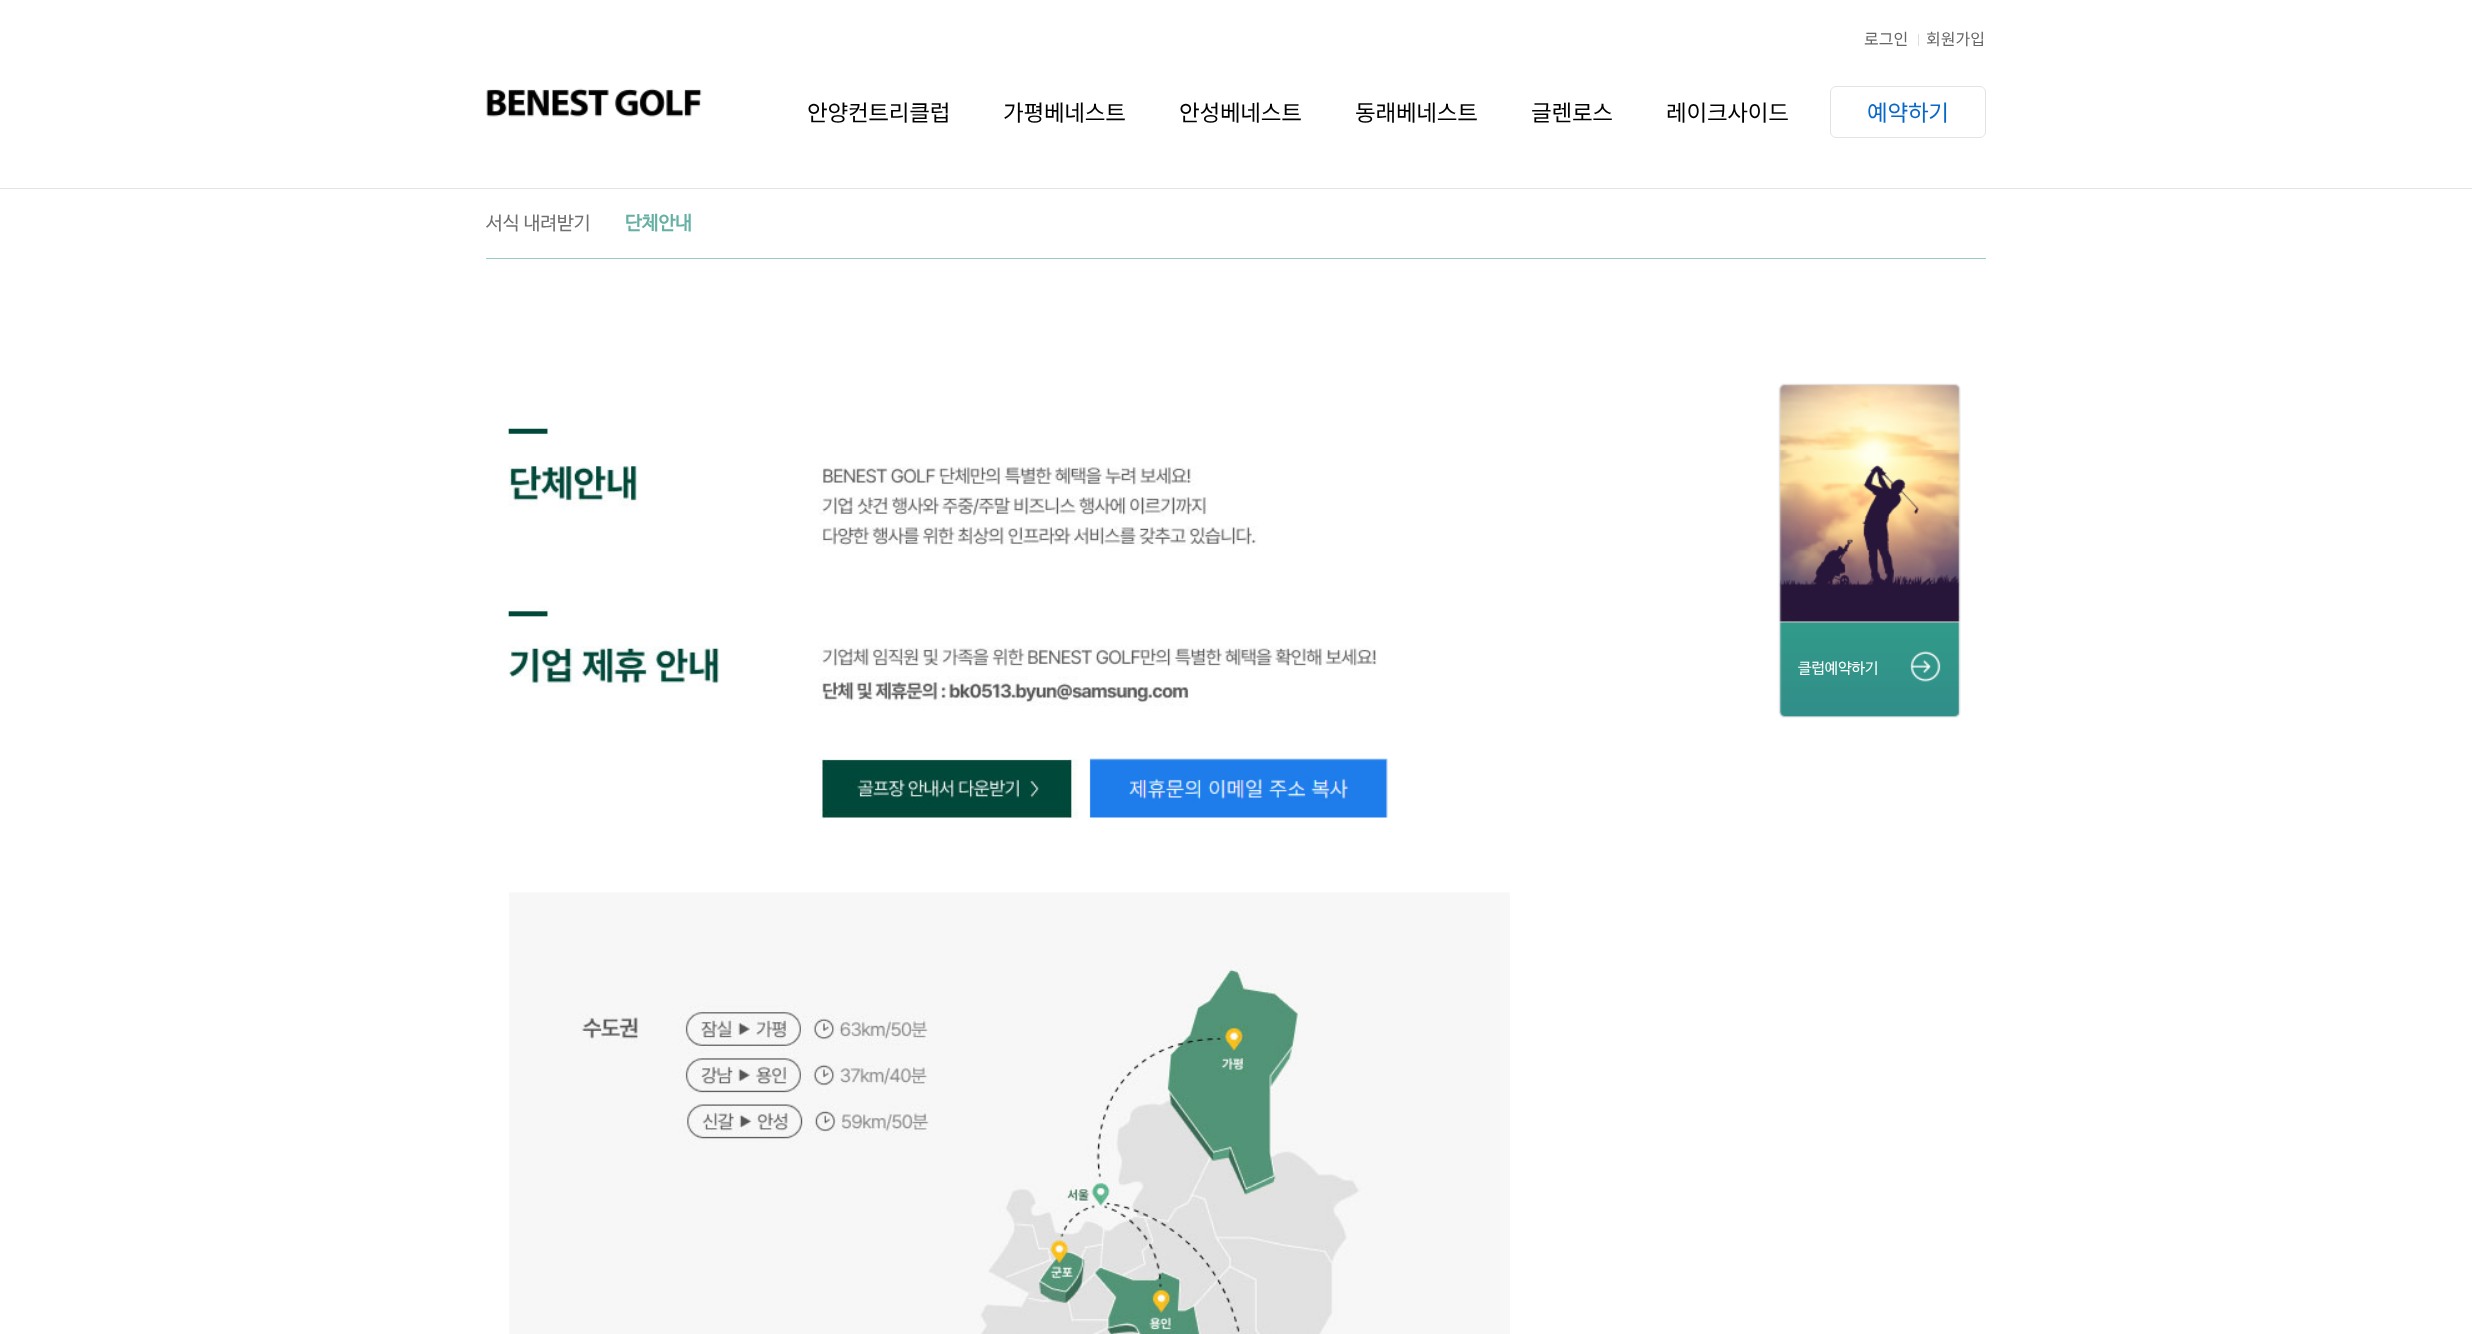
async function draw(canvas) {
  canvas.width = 2472;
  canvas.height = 1334;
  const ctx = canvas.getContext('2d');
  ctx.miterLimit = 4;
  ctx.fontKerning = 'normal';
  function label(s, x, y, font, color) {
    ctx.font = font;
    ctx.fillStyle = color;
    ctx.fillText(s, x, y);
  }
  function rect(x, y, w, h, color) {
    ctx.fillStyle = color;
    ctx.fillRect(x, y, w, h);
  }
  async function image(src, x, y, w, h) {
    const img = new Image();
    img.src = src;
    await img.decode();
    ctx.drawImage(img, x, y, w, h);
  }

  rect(0, 0, 2472, 1334, '#fff');
  rect(0, 188, 2472, 1, '#e3e3e3');
  label('로그인', 1864, 45, '16px Noto Sans KR', '#666');
  rect(1918, 34, 1, 12, '#dedede');
  label('회원가입', 1926, 45, '16px Noto Sans KR', '#666');
  await image('assets/img1.png', 486, 88, 216, 29);
  ctx.letterSpacing = '-0.25px';
  label('안양컨트리클럽', 807, 121, '22.5px Noto Sans KR', '#000');
  label('가평베네스트', 1003, 121, '22.5px Noto Sans KR', '#000');
  label('안성베네스트', 1179, 121, '22.5px Noto Sans KR', '#000');
  label('동래베네스트', 1355, 121, '22.5px Noto Sans KR', '#000');
  label('글렌로스', 1531, 121, '22.5px Noto Sans KR', '#000');
  label('레이크사이드', 1666, 121, '22.5px Noto Sans KR', '#000');
  ctx.beginPath();
  ctx.roundRect(1830.5, 86.5, 155, 51, 5.5);
  ctx.strokeStyle = '#e3e3e3';
  ctx.stroke();
  label('예약하기', 1867, 121, '22.5px Noto Sans KR', '#0967c7');
  rect(486, 258, 1500, 1, '#96ccc3');
  ctx.letterSpacing = '0px';
  label('서식 내려받기', 486, 229, '18.75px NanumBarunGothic', '#707070');
  label('단체안내', 625, 229, 'bold 18.75px NanumBarunGothic', '#65b0a3');
  await image('assets/img2.png', 508, 426, 869, 280);
  await image('assets/img3.png', 819, 758, 569, 61);
  await image('assets/img4.png', 509, 892, 1001, 442);
  await image('assets/img6.png', 1778, 622, 183, 96);
  await image('assets/img5.png', 1778, 383, 183, 240);
  label('클럽예약하기', 1798, 673, '15px NanumBarunGothic', '#fff');
}

draw(document.querySelector('canvas'));
